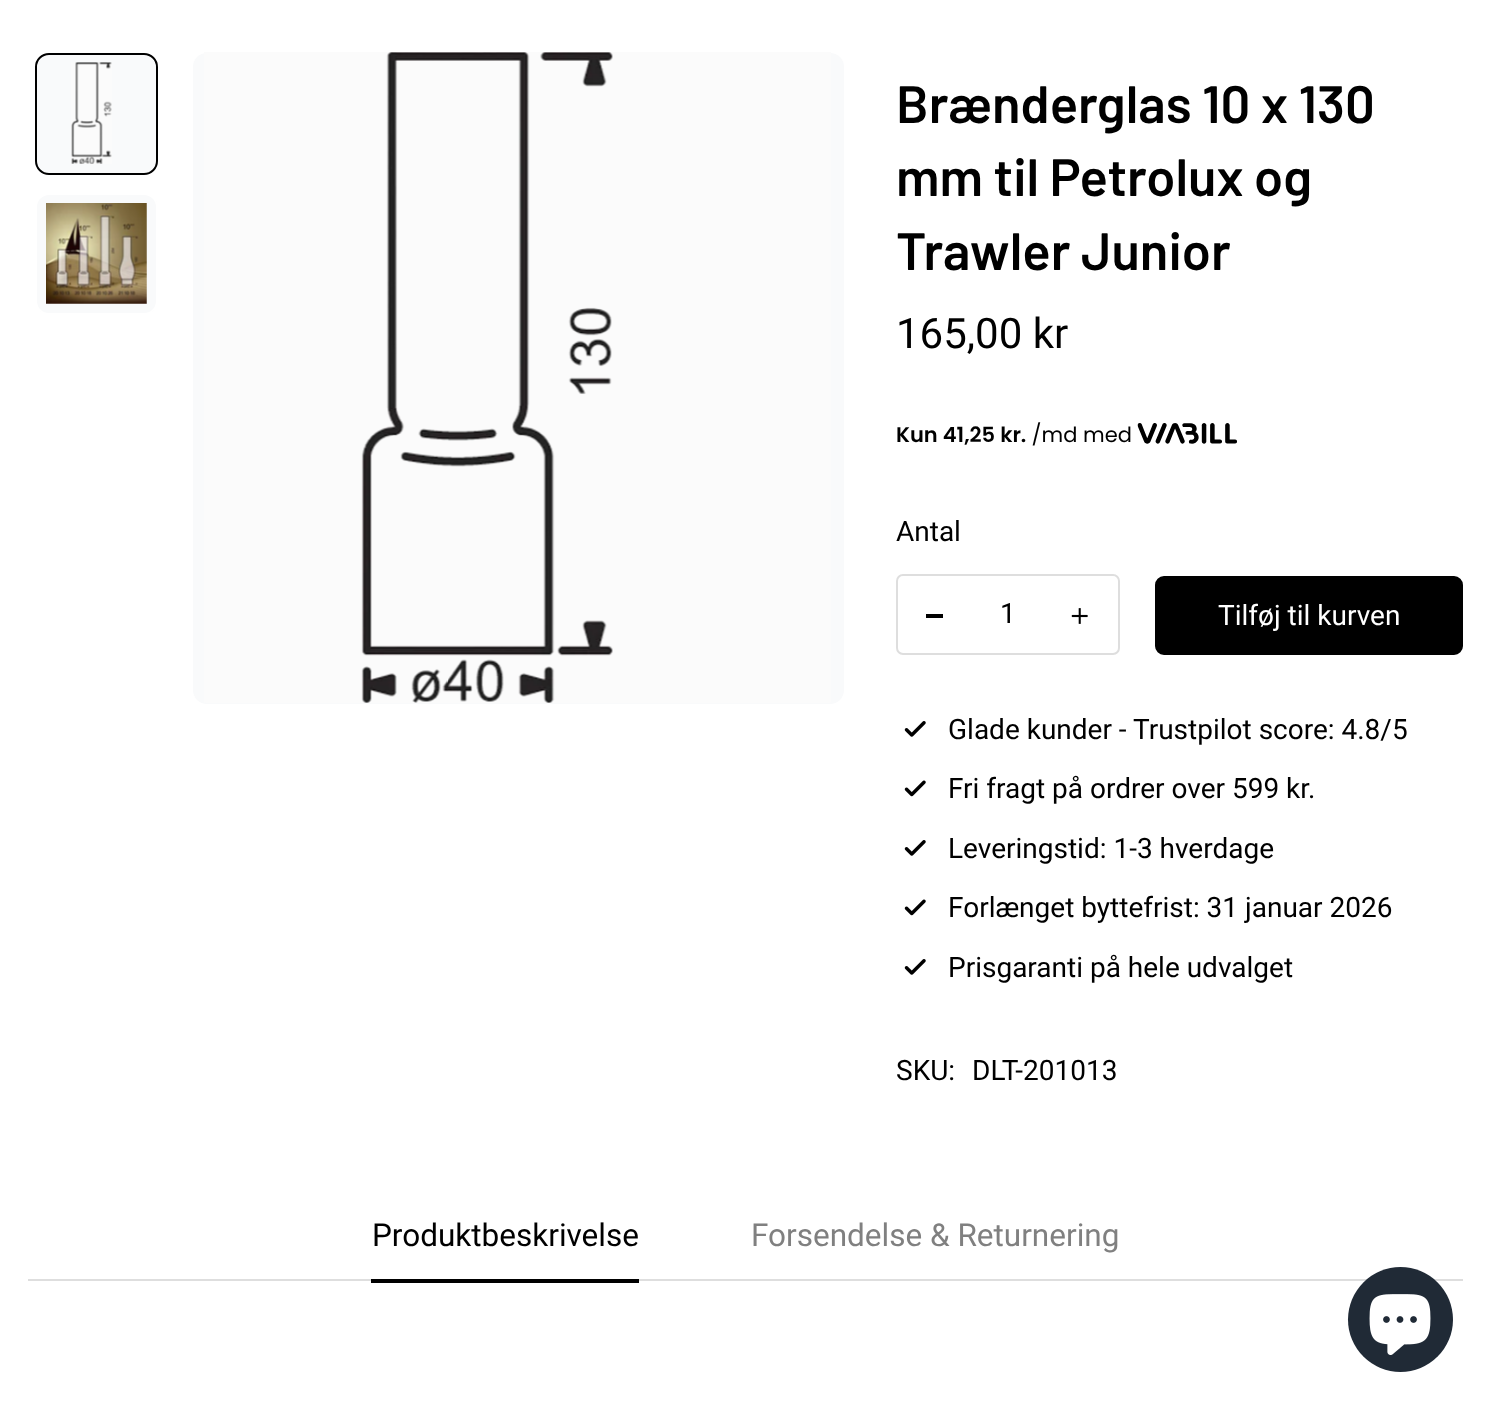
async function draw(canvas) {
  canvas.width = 1490;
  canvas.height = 1408;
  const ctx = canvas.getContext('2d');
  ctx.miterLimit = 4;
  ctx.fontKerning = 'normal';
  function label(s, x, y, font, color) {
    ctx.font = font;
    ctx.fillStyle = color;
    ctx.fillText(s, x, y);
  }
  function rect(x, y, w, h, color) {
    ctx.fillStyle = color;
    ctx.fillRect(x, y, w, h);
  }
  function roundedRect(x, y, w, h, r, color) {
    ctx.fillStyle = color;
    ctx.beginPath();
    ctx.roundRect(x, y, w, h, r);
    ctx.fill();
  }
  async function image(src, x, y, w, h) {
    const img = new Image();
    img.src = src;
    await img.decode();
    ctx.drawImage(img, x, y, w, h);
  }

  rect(0, 0, 1490, 1408, '#fff');
  ctx.fillStyle = '#f9fafb';
  ctx.beginPath();
  ctx.roundRect(36, 54, 121, 120, 13);
  ctx.fill();
  ctx.strokeStyle = '#000';
  ctx.lineWidth = 2;
  ctx.stroke();
  await image('assets/img1.png', 71, 62, 41, 102);
  ctx.beginPath();
  ctx.roundRect(36, 194, 121, 120, 13);
  ctx.fill();
  ctx.strokeStyle = '#fff';
  ctx.stroke();
  await image('assets/img2.png', 46, 203, 101, 101);
  roundedRect(193, 53, 651, 651, 14, '#f9fafb');
  await image('assets/img3.png', 204, 52, 627, 651);
  label('Brænderglas 10 x 130', 896, 123, '600 52.5px Barlow', '#000');
  label('mm til Petrolux og', 896, 196, '600 52.5px Barlow', '#000');
  label('Trawler Junior', 896, 270, '600 52.5px Barlow', '#000');
  label('165,00 kr', 896, 348, '42px Roboto', '#000');
  await image('assets/img4.png', 897, 422, 340, 24);
  label('Antal', 896, 541, '28px Roboto', '#000');
  ctx.beginPath();
  ctx.roundRect(897, 575, 222, 79, 6);
  ctx.strokeStyle = '#dedede';
  ctx.stroke();
  rect(926, 614, 17, 4, '#000');
  label('1', 1000, 623, '28px Roboto', '#000');
  await image('assets/img5.png', 1071, 608, 17, 16);
  ctx.beginPath();
  ctx.roundRect(1156, 577, 306, 77, 8);
  ctx.fill();
  ctx.strokeStyle = '#000';
  ctx.stroke();
  label('Tilføj til kurven', 1218, 625, '28px Roboto', '#fff');
  await image('assets/img6.png', 904, 721, 22, 16);
  label('Glade kunder - Trustpilot score: 4.8/5', 948, 739, '28px Roboto', '#000');
  await image('assets/img7.png', 904, 780, 22, 17);
  label('Fri fragt på ordrer over 599 kr.', 948, 798, '28px Roboto', '#000');
  await image('assets/img6.png', 904, 840, 22, 16);
  label('Leveringstid: 1-3 hverdage', 948, 858, '28px Roboto', '#000');
  await image('assets/img7.png', 904, 899, 22, 17);
  label('Forlænget byttefrist: 31 januar 2026', 948, 917, '28px Roboto', '#000');
  await image('assets/img6.png', 904, 959, 22, 16);
  label('Prisgaranti på hele udvalget', 948, 977, '28px Roboto', '#000');
  label('SKU:', 896, 1080, '28px Roboto', '#000');
  label('DLT-201013', 972, 1080, '28px Roboto', '#000');
  rect(28, 1279, 1435, 2, '#dedede');
  label('Produktbeskrivelse', 372, 1246, '31.5px Roboto', '#000');
  rect(371, 1279, 268, 4, '#000');
  label('Forsendelse & Returnering', 751, 1246, '31.5px Roboto', '#808080');
  ctx.fillStyle = '#202a36';
  ctx.beginPath();
  ctx.arc(1400.5, 1319.5, 52.5, 0, 2 * Math.PI);
  ctx.fill();
  await image('assets/img8.png', 1369, 1294, 62, 61);
}

draw(document.querySelector('canvas'));
